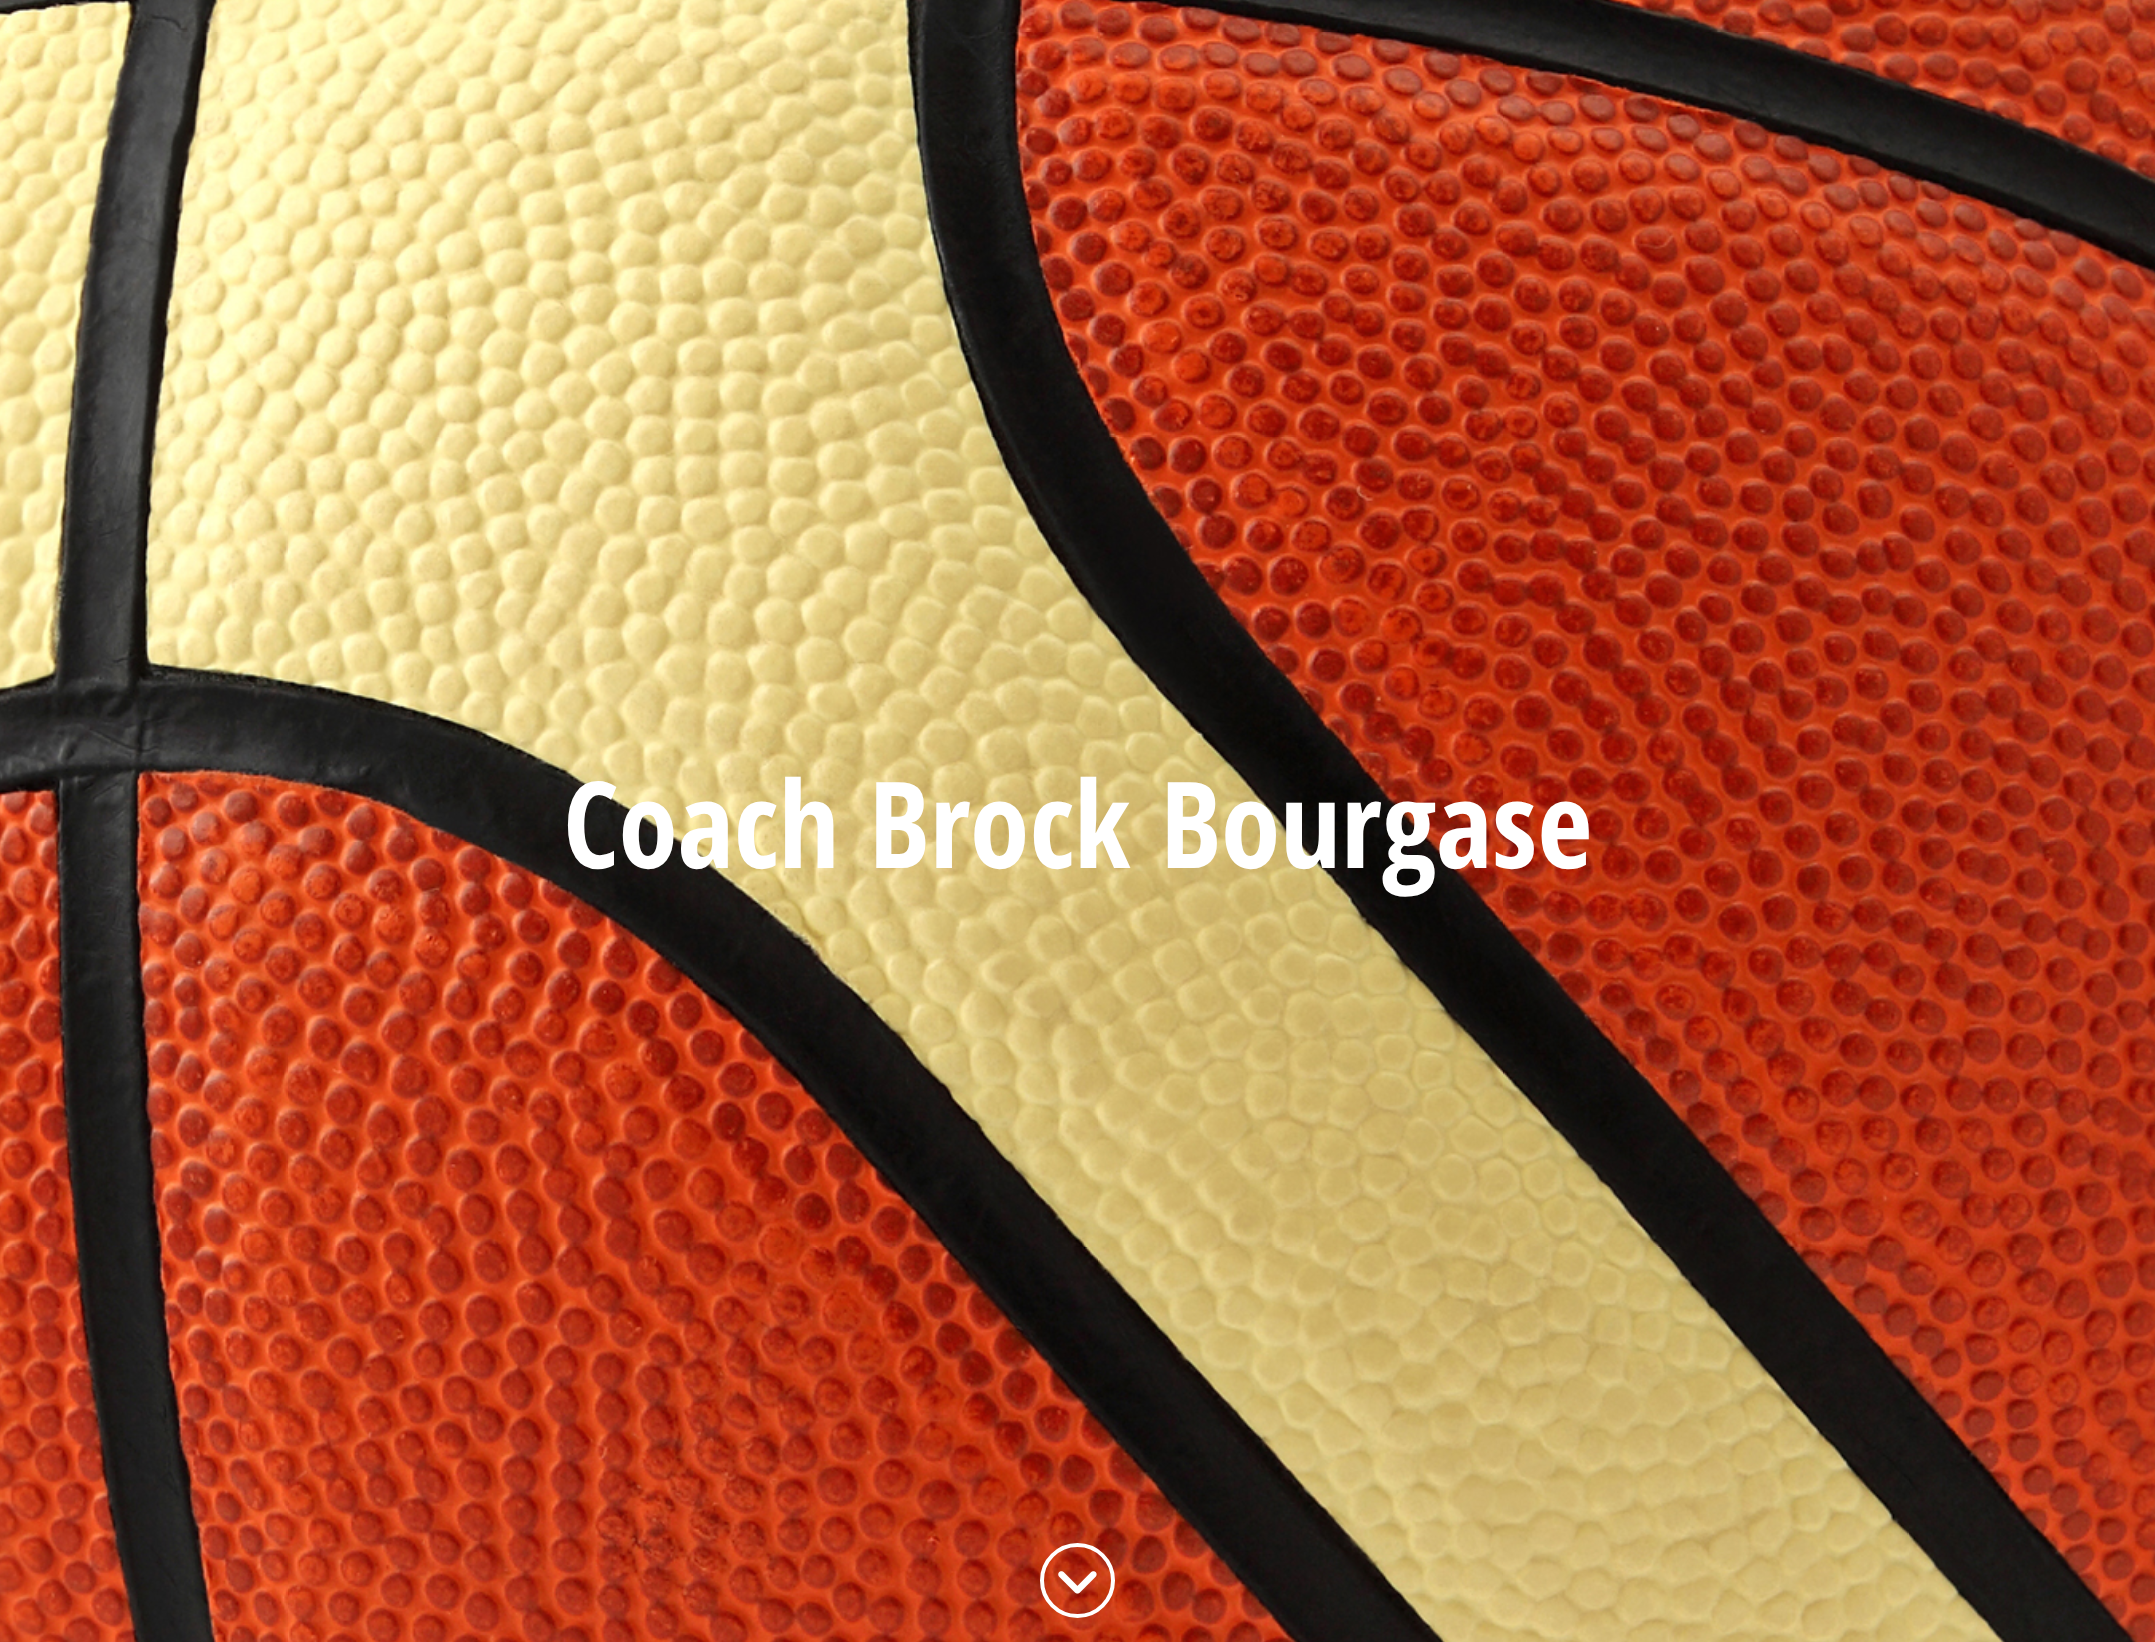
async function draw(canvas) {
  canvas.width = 2155;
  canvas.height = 1642;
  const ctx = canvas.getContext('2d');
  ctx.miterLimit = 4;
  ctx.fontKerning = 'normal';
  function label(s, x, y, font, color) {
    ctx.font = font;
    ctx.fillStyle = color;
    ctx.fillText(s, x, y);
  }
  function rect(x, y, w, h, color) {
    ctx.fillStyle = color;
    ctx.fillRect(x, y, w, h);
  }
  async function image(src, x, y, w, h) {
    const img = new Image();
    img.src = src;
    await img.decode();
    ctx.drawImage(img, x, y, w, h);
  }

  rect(0, 0, 2155, 1642, '#fff');
  await image('assets/img1.png', 0, 0, 2155, 1642);
  label('Coach Brock Bourgase', 563, 868, 'bold 120px Open Sans Condensed', '#fff');
  ctx.beginPath();
  ctx.arc(1077.5, 1580.5, 35.5, 0, 2 * Math.PI);
  ctx.strokeStyle = '#fff';
  ctx.lineWidth = 4;
  ctx.stroke();
  await image('assets/img2.png', 1058, 1571, 39, 23);
}

draw(document.querySelector('canvas'));
